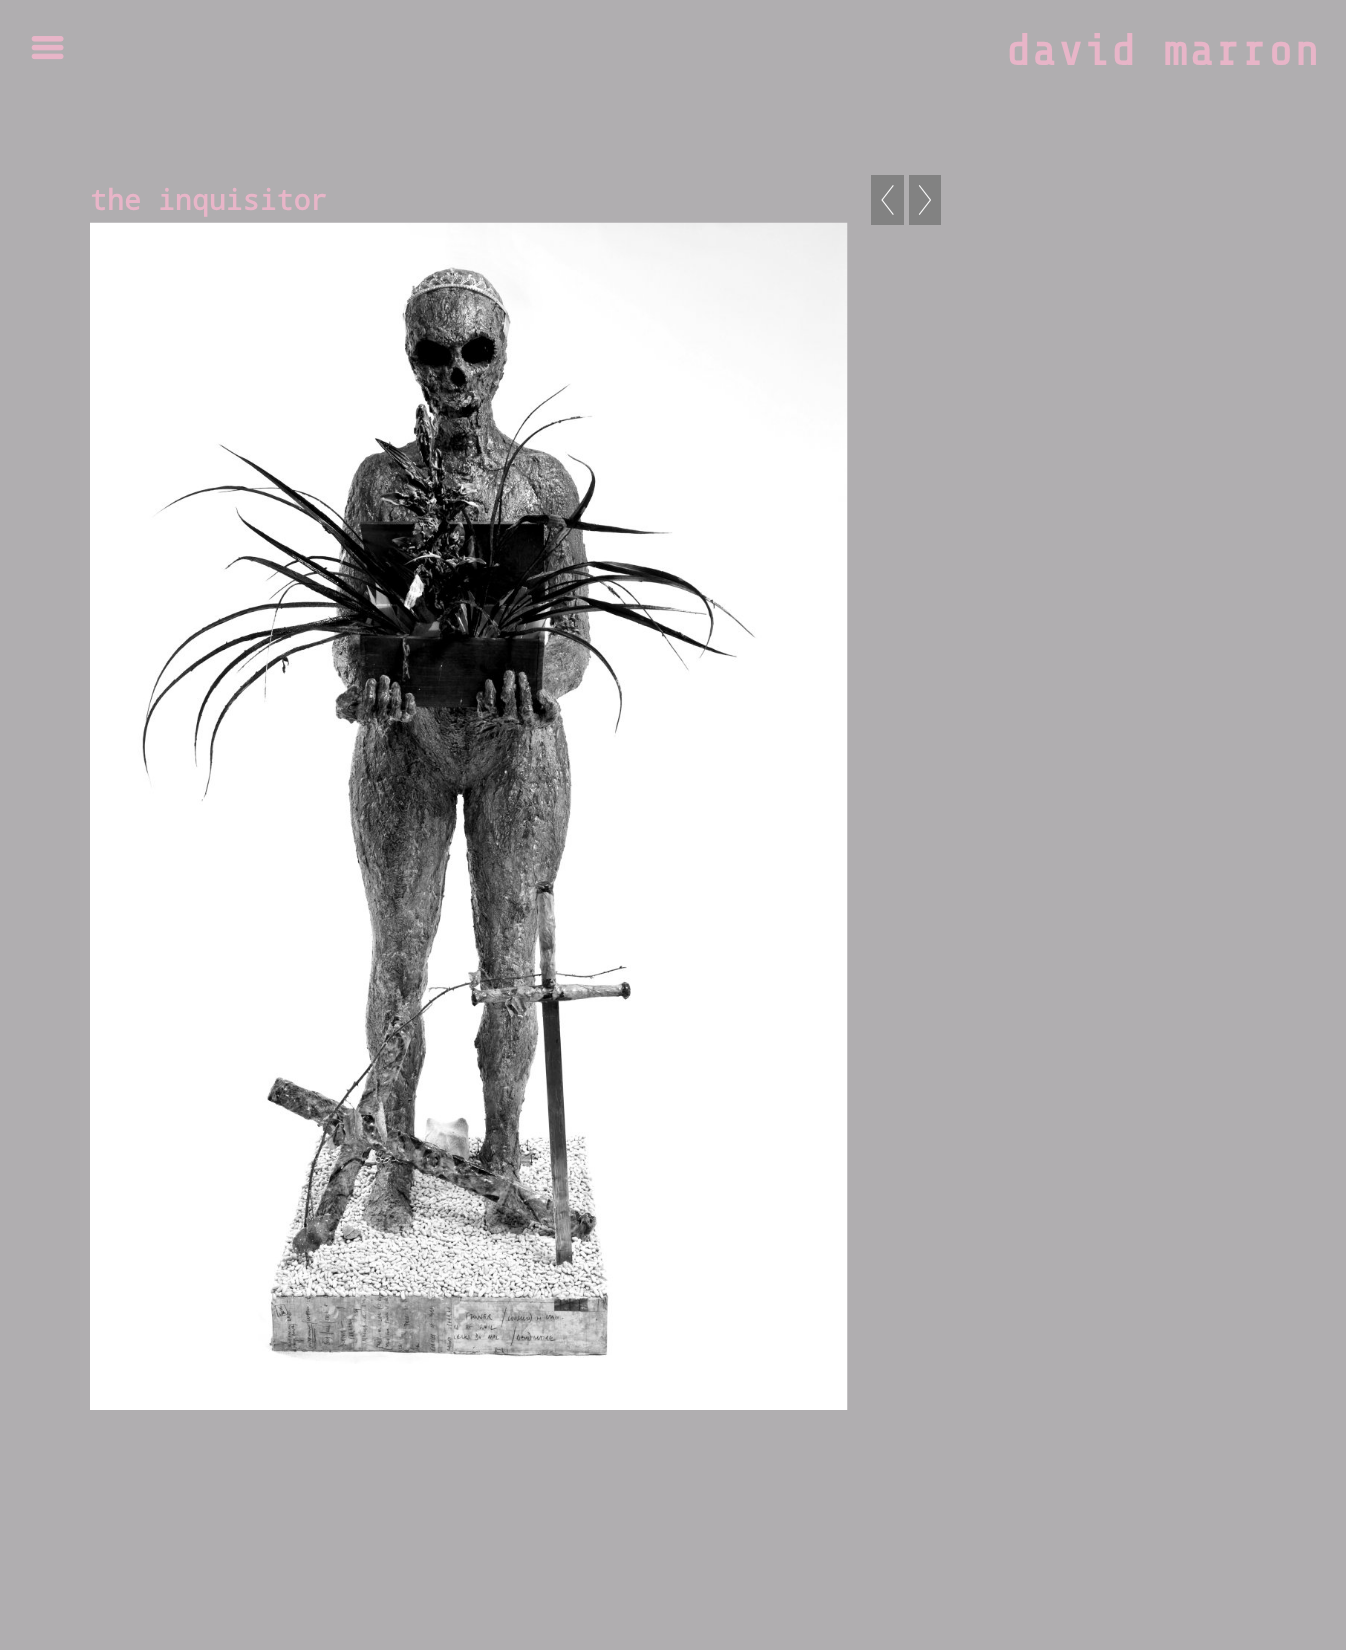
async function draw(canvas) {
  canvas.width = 1346;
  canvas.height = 1650;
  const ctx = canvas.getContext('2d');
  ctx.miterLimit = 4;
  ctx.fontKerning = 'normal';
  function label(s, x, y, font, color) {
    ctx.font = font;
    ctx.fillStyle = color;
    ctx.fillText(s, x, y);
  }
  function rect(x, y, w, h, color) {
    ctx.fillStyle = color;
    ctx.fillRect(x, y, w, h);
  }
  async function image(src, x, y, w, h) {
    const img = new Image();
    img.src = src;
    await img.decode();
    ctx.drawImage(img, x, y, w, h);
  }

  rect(0, 0, 1346, 1650, '#b0aeb0');
  await image('assets/img1.png', 31, 36, 33, 24);
  ctx.letterSpacing = '2.5px';
  label('david marron', 1006, 65, 'bold 44px Share Tech Mono', '#e8b5c8');
  ctx.letterSpacing = '0px';
  label('the inquisitor', 90, 210, 'bold 28.25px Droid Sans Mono', '#e8b5c8');
  await image('assets/img2.png', 90, 222, 758, 1188);
  rect(871, 175, 33, 50, '#828282');
  await image('assets/img3.png', 881, 185, 13, 30);
  rect(909, 175, 32, 50, '#828282');
  await image('assets/img4.png', 918, 185, 13, 30);
}

draw(document.querySelector('canvas'));
